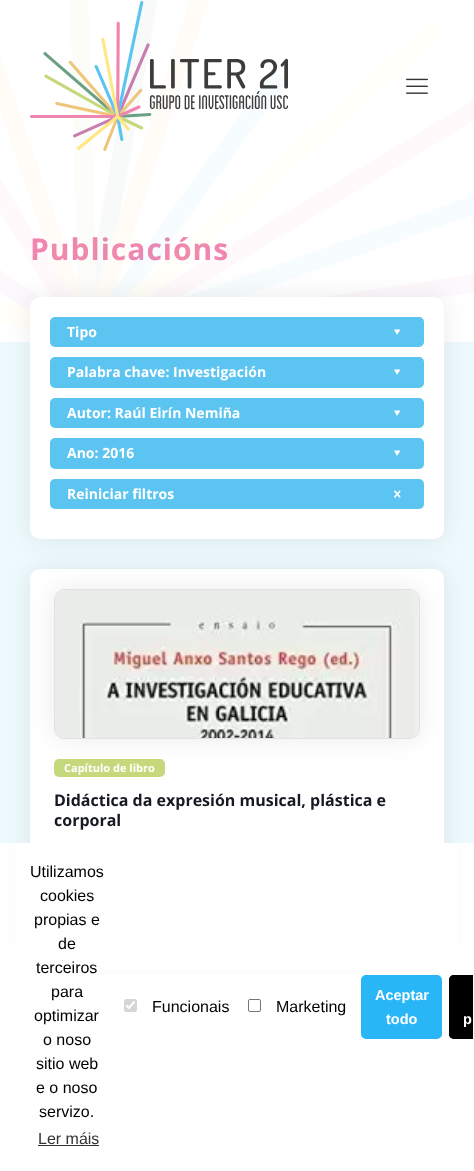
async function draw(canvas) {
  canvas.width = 474;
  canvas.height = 1171;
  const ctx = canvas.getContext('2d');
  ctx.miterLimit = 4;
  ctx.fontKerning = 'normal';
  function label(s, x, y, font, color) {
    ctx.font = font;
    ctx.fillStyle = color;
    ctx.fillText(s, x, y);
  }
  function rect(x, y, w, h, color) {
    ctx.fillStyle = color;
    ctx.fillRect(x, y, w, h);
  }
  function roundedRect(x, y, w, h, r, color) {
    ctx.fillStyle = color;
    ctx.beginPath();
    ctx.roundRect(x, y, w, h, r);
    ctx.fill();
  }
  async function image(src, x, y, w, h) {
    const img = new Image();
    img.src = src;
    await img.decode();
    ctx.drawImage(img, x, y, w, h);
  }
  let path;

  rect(0, 0, 474, 1171, '#fff');
  ctx.letterSpacing = '1px';
  label('Publicacións', 30, 260, 'bold 30px Open Sans', '#f086b0');
  await image('assets/img3.png', 0, 0, 474, 330);
  await image('assets/img1.png', 30, 1, 258, 150);
  await image('assets/img2.png', 406, 78, 22, 16);
  rect(0, 342, 474, 501, '#eef9fd');
  ctx.fillStyle = '#00000014';
  ctx.filter = 'blur(12px)';
  ctx.beginPath();
  ctx.roundRect(30, 297, 414, 242, 10);
  ctx.fill();
  ctx.filter = 'none';
  roundedRect(30, 297, 414, 242, 10, '#fff');
  ctx.fillStyle = '#5cc4f1';
  ctx.beginPath();
  ctx.roundRect(51, 318, 372, 28, 4);
  ctx.fill();
  ctx.strokeStyle = '#5cc4f1';
  ctx.lineWidth = 2;
  ctx.stroke();
  ctx.letterSpacing = '0px';
  label('Tipo', 67, 337, 'bold 14px Open Sans', '#fff');
  path = new Path2D('M400.5 329.5L397 335L394 329.5Z');
  ctx.fill(path);
  ctx.fillStyle = '#5cc4f1';
  ctx.beginPath();
  ctx.roundRect(51, 358, 372, 29, 4);
  ctx.fill();
  ctx.stroke();
  label('Palabra chave: Investigación', 67, 377, 'bold 14px Open Sans', '#fff');
  path = new Path2D('M400.5 369.5L397 375L394 369.5Z');
  ctx.fill(path);
  ctx.fillStyle = '#5cc4f1';
  ctx.beginPath();
  ctx.roundRect(51, 399, 372, 28, 4);
  ctx.fill();
  ctx.stroke();
  label('Autor: Raúl Eirín Nemiña', 67, 418, 'bold 14px Open Sans', '#fff');
  path = new Path2D('M400.5 410.5L397 416L394 410.5Z');
  ctx.fill(path);
  ctx.fillStyle = '#5cc4f1';
  ctx.beginPath();
  ctx.roundRect(51, 439, 372, 29, 4);
  ctx.fill();
  ctx.stroke();
  label('Ano: 2016', 67, 458, 'bold 14px Open Sans', '#fff');
  path = new Path2D('M400.5 450.5L397 456L394 450.5Z');
  ctx.fill(path);
  ctx.fillStyle = '#5cc4f1';
  ctx.beginPath();
  ctx.roundRect(51, 480, 372, 28, 4);
  ctx.fill();
  ctx.stroke();
  label('Reiniciar filtros', 67, 499, 'bold 14px Open Sans', '#fff');
  await image('assets/img4.png', 394, 490, 7, 8);
  ctx.fillStyle = '#00000014';
  ctx.filter = 'blur(12px)';
  ctx.beginPath();
  ctx.roundRect(30, 569, 414, 387, 10);
  ctx.fill();
  ctx.filter = 'none';
  roundedRect(30, 569, 414, 387, 10, '#fff');
  ctx.fillStyle = '#00000014';
  ctx.filter = 'blur(12px)';
  ctx.beginPath();
  ctx.roundRect(54, 589, 366, 150, 10);
  ctx.fill();
  ctx.filter = 'none';
  ctx.beginPath();
  ctx.roundRect(54.5, 589.5, 365, 149, 9.5);
  ctx.strokeStyle = '#e3e3e3';
  ctx.lineWidth = 1;
  ctx.stroke();
  await image('assets/img5.png', 55, 590, 364, 148);
  roundedRect(54, 759, 111, 18, 5, '#c5d97c');
  label('Capítulo de libro', 64, 772, 'bold 11px Open Sans', '#fff');
  label('Didáctica da expresión musical, plástica e', 54, 806, 'bold 16px Open Sans', '#161922');
  label('corporal', 54, 826, 'bold 16px Open Sans', '#161922');
  rect(16, 843, 442, 127, '#fff');
  label('Utilizamos', 30, 877, '16px Liberation Sans', '#000');
  label('cookies', 40, 901, '16px Liberation Sans', '#000');
  label('propias e', 34, 925, '16px Liberation Sans', '#000');
  label('de', 58, 949, '16px Liberation Sans', '#000');
  label('terceiros', 36, 973, '16px Liberation Sans', '#000');
  label('para', 51, 997, '16px Liberation Sans', '#000');
  label('optimizar', 34, 1021, '16px Liberation Sans', '#000');
  label('o noso', 43, 1045, '16px Liberation Sans', '#000');
  label('sitio web', 36, 1069, '16px Liberation Sans', '#000');
  label('e o noso', 36, 1093, '16px Liberation Sans', '#000');
  label('servizo.', 39, 1117, '16px Liberation Sans', '#000');
  label('Ler máis', 38, 1144, '16px Liberation Sans', '#333');
  rect(38, 1145, 61, 1, '#333');
  roundedRect(124, 999, 13, 13, 2, '#d6d6d6');
  path = new Path2D('M126.5 1005.5L129 1008L134.5 1001.5');
  ctx.strokeStyle = '#fff';
  ctx.lineWidth = 2.1;
  ctx.stroke(path);
  label('Funcionais', 152, 1012, '16px Liberation Sans', '#000');
  ctx.beginPath();
  ctx.roundRect(248.5, 999.5, 12, 12, 1.5);
  ctx.strokeStyle = '#767676';
  ctx.lineWidth = 1;
  ctx.stroke();
  label('Marketing', 276, 1012, '16px Liberation Sans', '#000');
  ctx.fillStyle = '#29b6f6';
  ctx.beginPath();
  ctx.roundRect(362, 976, 79, 62, 4);
  ctx.fill();
  ctx.strokeStyle = '#29b6f6';
  ctx.lineWidth = 2;
  ctx.stroke();
  label('Aceptar', 375, 1000, 'bold 14.5px Liberation Sans', '#fff');
  label('todo', 386, 1024, 'bold 14.5px Liberation Sans', '#fff');
  ctx.fillStyle = '#000';
  ctx.beginPath();
  ctx.roundRect(449, 975, 24, 64, [5, 0, 0, 5]);
  ctx.fill();
  ctx.save();
  ctx.beginPath();
  ctx.rect(1, 844, 472, 326);
  ctx.clip();
  ctx.beginPath();
  ctx.roundRect(450, 976, 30, 62, 4);
  ctx.strokeStyle = '#000';
  ctx.stroke();
  ctx.restore();
  label('p', 463, 1024, 'bold 14.5px Liberation Sans', '#fff');
}

draw(document.querySelector('canvas'));
